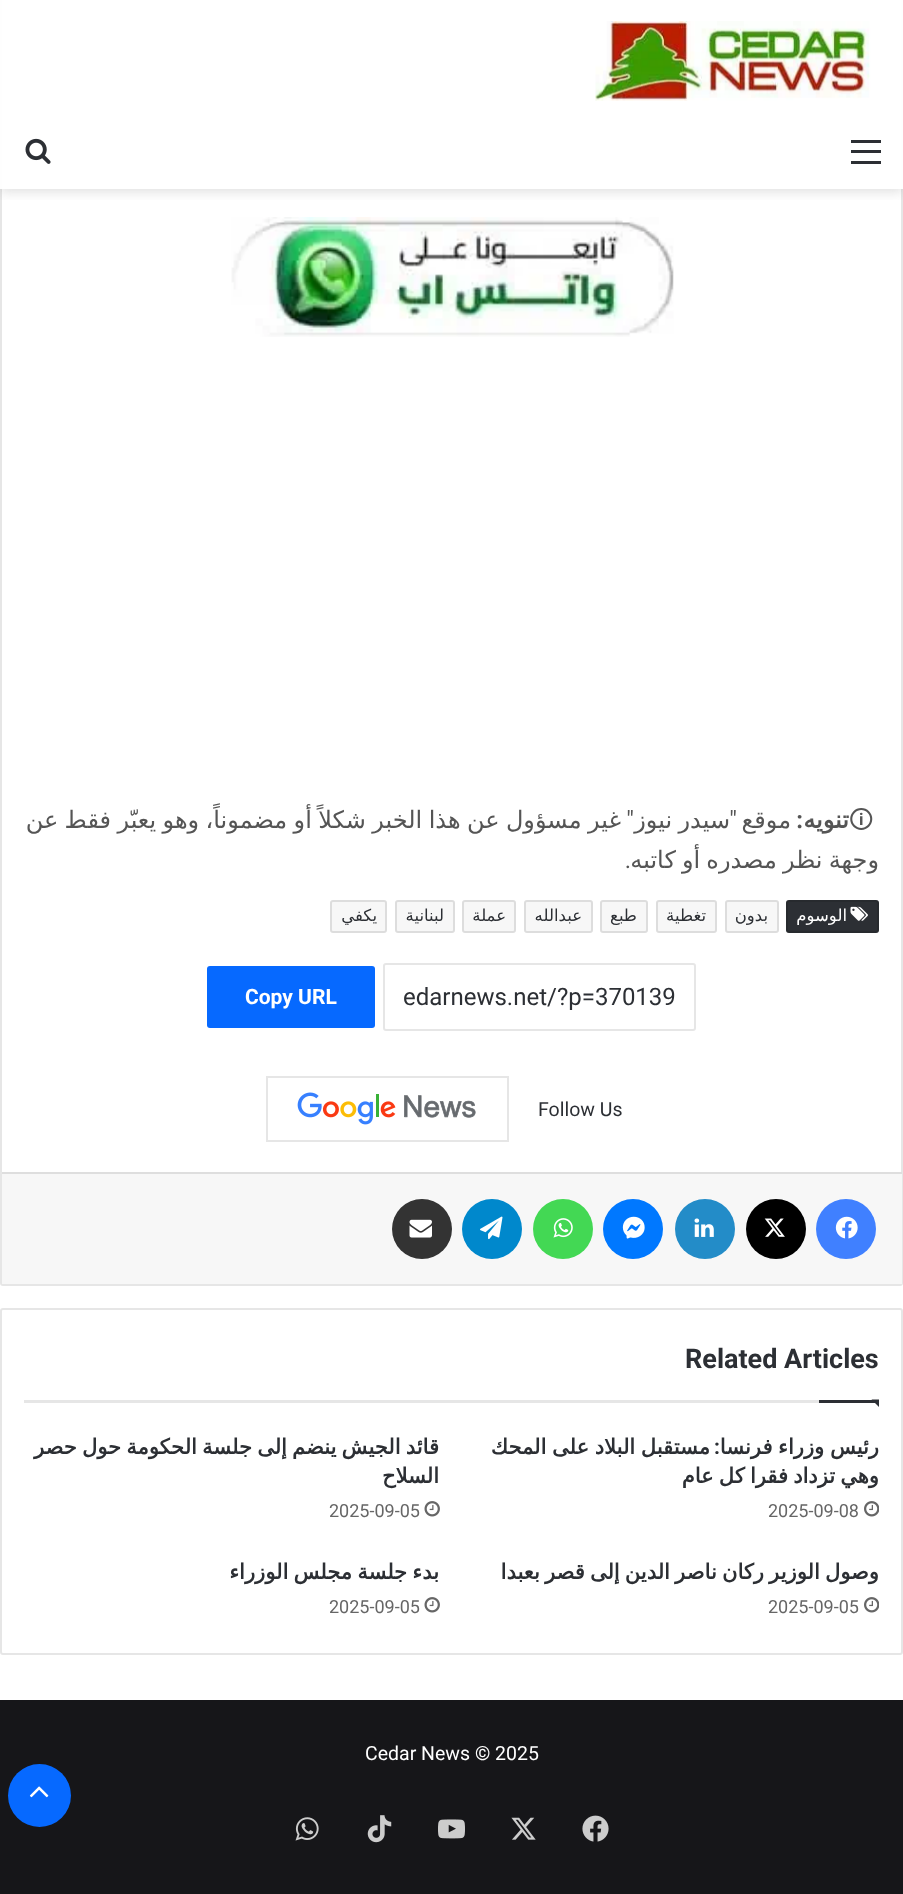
async function draw(canvas) {
  canvas.width = 903;
  canvas.height = 1894;
  const ctx = canvas.getContext('2d');
  ctx.miterLimit = 4;
  ctx.fontKerning = 'normal';
  function label(s, x, y, font, color) {
    ctx.font = font;
    ctx.fillStyle = color;
    ctx.fillText(s, x, y);
  }
  function rect(x, y, w, h, color) {
    ctx.fillStyle = color;
    ctx.fillRect(x, y, w, h);
  }
  function roundedRect(x, y, w, h, r, color) {
    ctx.fillStyle = color;
    ctx.beginPath();
    ctx.roundRect(x, y, w, h, r);
    ctx.fill();
  }
  async function image(src, x, y, w, h) {
    const img = new Image();
    img.src = src;
    await img.decode();
    ctx.drawImage(img, x, y, w, h);
  }
  let path;

  rect(0, 0, 903, 1894, '#fff');
  ctx.beginPath();
  ctx.roundRect(1, -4, 901, 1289, 2);
  ctx.strokeStyle = '#e6e6e6';
  ctx.lineWidth = 2;
  ctx.stroke();
  ctx.save();
  ctx.beginPath();
  ctx.rect(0, 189, 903, 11);
  ctx.clip();
  ctx.fillStyle = '#63636333';
  ctx.filter = 'blur(6px)';
  ctx.beginPath();
  ctx.rect(0, 3, 903, 189);
  ctx.fill();
  ctx.filter = 'none';
  ctx.restore();
  rect(0, 0, 903, 189, '#fffffff2');
  await image('assets/img1.png', 595, 21, 285, 80);
  rect(851, 150, 30, 3, '#2c2f34');
  rect(851, 140, 30, 3, '#2c2f34');
  rect(851, 161, 30, 3, '#2c2f34');
  await image('assets/img2.png', 25, 138, 26, 26);
  await image('assets/img3.png', 231, 217, 443, 120);
  label('🛈', 849, 828, '24px "Noto Sans Symbols 2"', '#555');
  ctx.wordSpacing = '-1.25px';
  ctx.direction = 'rtl';
  label('غير مسؤول عن هذا الخبر شكلاً أو مضموناً، وهو يعبّر فقط عن', 621, 828, '24px DejaVu Sans', '#555');
  ctx.wordSpacing = '0px';
  label('تنويه', 849, 828, 'bold 24px DejaVu Sans', '#555');
  label(':', 803, 828, 'bold 24px Roboto', '#555');
  label('موقع', 791, 828, '24px DejaVu Sans', '#555');
  label('"', 737, 828, '24px Roboto', '#555');
  ctx.wordSpacing = '-1.25px';
  label('سيدر نيوز', 730, 828, '24px DejaVu Sans', '#555');
  ctx.wordSpacing = '0px';
  label('"', 634, 828, '24px Roboto', '#555');
  ctx.wordSpacing = '-1.5px';
  label('وجهة نظر مصدره أو كاتبه', 879, 868, '24px DejaVu Sans', '#555');
  ctx.wordSpacing = '0px';
  label('.', 631, 868, '24px Roboto', '#555');
  roundedRect(786, 900, 93, 33, 3, '#2c2f34');
  ctx.beginPath();
  ctx.roundRect(787, 901, 91, 31, 2);
  ctx.strokeStyle = '#0000001a';
  ctx.stroke();
  await image('assets/img4.png', 850, 906, 18, 15);
  label('الوسوم', 847, 921, '16.5px DejaVu Sans', '#fff');
  roundedRect(725, 900, 54, 33, 3, '#f7f7f7');
  ctx.beginPath();
  ctx.roundRect(726, 901, 52, 31, 2);
  ctx.stroke();
  label('بدون', 768, 921, '16.5px DejaVu Sans', '#2c2f34');
  roundedRect(656, 900, 61, 33, 3, '#f7f7f7');
  ctx.beginPath();
  ctx.roundRect(657, 901, 59, 31, 2);
  ctx.stroke();
  label('تغطية', 706, 921, '16.5px DejaVu Sans', '#2c2f34');
  roundedRect(600, 900, 48, 33, 3, '#f7f7f7');
  ctx.beginPath();
  ctx.roundRect(601, 901, 46, 31, 2);
  ctx.stroke();
  label('طبع', 637, 921, '16.5px DejaVu Sans', '#2c2f34');
  roundedRect(524, 900, 69, 33, 3, '#f7f7f7');
  ctx.beginPath();
  ctx.roundRect(525, 901, 67, 31, 2);
  ctx.stroke();
  label('عبدالله', 582, 921, '16.5px DejaVu Sans', '#2c2f34');
  roundedRect(462, 900, 54, 33, 3, '#f7f7f7');
  ctx.beginPath();
  ctx.roundRect(463, 901, 52, 31, 2);
  ctx.stroke();
  label('عملة', 506, 921, '16.5px DejaVu Sans', '#2c2f34');
  roundedRect(395, 900, 60, 33, 3, '#f7f7f7');
  ctx.beginPath();
  ctx.roundRect(396, 901, 58, 31, 2);
  ctx.stroke();
  label('لبنانية', 444, 921, '16.5px DejaVu Sans', '#2c2f34');
  roundedRect(330, 900, 57, 33, 3, '#f7f7f7');
  ctx.beginPath();
  ctx.roundRect(331, 901, 55, 31, 2);
  ctx.stroke();
  label('يكفي', 377, 921, '16.5px DejaVu Sans', '#2c2f34');
  ctx.beginPath();
  ctx.roundRect(384, 964, 311, 66, 2);
  ctx.strokeStyle = '#e6e6e6';
  ctx.stroke();
  ctx.direction = 'ltr';
  label('edarnews.net/?p=370139', 403, 1005, '24px Roboto', '#2c2f34');
  roundedRect(207, 966, 168, 62, 3, '#0669ff');
  label('Copy URL', 245, 1004, 'bold 21px Roboto', '#fff');
  label('Follow Us', 538, 1116, '19.5px Roboto', '#2c2f34');
  ctx.strokeRect(267, 1077, 241, 64);
  await image('assets/img5.png', 297, 1092, 179, 33);
  rect(2, 1174, 900, 110, '#f7f7f7');
  rect(2, 1172, 900, 2, '#dedede');
  ctx.fillStyle = '#4080ff';
  ctx.beginPath();
  ctx.arc(846, 1229, 30, 0, 2 * Math.PI);
  ctx.fill();
  await image('assets/img6.png', 835, 1216, 23, 23);
  ctx.fillStyle = '#000';
  ctx.beginPath();
  ctx.arc(776, 1229, 30, 0, 2 * Math.PI);
  ctx.fill();
  await image('assets/img7.png', 764, 1218, 21, 19);
  ctx.fillStyle = '#238cc8';
  ctx.beginPath();
  ctx.arc(705, 1229, 30, 0, 2 * Math.PI);
  ctx.fill();
  await image('assets/img8.png', 694, 1218, 20, 19);
  ctx.fillStyle = '#0078ff';
  ctx.beginPath();
  ctx.arc(633, 1229, 30, 0, 2 * Math.PI);
  ctx.fill();
  await image('assets/img9.png', 622, 1216, 23, 23);
  ctx.fillStyle = '#43d854';
  ctx.beginPath();
  ctx.arc(563, 1229, 30, 0, 2 * Math.PI);
  ctx.fill();
  await image('assets/img10.png', 553, 1218, 20, 20);
  ctx.fillStyle = '#08c';
  ctx.beginPath();
  ctx.arc(492, 1229, 30, 0, 2 * Math.PI);
  ctx.fill();
  await image('assets/img11.png', 480, 1216, 23, 24);
  ctx.fillStyle = '#333';
  ctx.beginPath();
  ctx.arc(422, 1229, 30, 0, 2 * Math.PI);
  ctx.fill();
  await image('assets/img12.png', 409, 1219, 23, 19);
  ctx.beginPath();
  ctx.roundRect(1, 1309, 901, 345, 2);
  ctx.stroke();
  rect(24, 1400, 795, 3, '#e6e6e6');
  label('Related Articles', 685, 1368, 'bold 27px Roboto', '#2c2f34');
  path = new Path2D('M871.5 1399.5H879V1407Z');
  ctx.fill(path);
  rect(819, 1400, 60, 3, '#2c2f34');
  ctx.wordSpacing = '-1px';
  ctx.direction = 'rtl';
  label('رئيس وزراء فرنسا', 879, 1454, 'bold 21px DejaVu Sans', '#2c2f34');
  ctx.wordSpacing = '0px';
  label(':', 720, 1454, 'bold 21px Roboto', '#2c2f34');
  ctx.wordSpacing = '-1px';
  label('مستقبل البلاد على المحك', 710, 1454, 'bold 21px DejaVu Sans', '#2c2f34');
  ctx.wordSpacing = '-1.5px';
  label('وهي تزداد فقرا كل عام', 879, 1483, 'bold 21px DejaVu Sans', '#2c2f34');
  await image('assets/img13.png', 864, 1501, 15, 16);
  ctx.wordSpacing = '0px';
  ctx.direction = 'ltr';
  label('2025-09-08', 768, 1517, '18px Roboto', '#666');
  ctx.wordSpacing = '-1.5px';
  ctx.direction = 'rtl';
  label('قائد الجيش ينضم إلى جلسة الحكومة حول حصر', 439, 1454, 'bold 21px DejaVu Sans', '#2c2f34');
  ctx.wordSpacing = '0px';
  label('السلاح', 439, 1483, 'bold 21px DejaVu Sans', '#2c2f34');
  await image('assets/img14.png', 424, 1501, 16, 16);
  ctx.direction = 'ltr';
  label('2025-09-05', 329, 1517, '18px Roboto', '#666');
  ctx.wordSpacing = '-1.5px';
  ctx.direction = 'rtl';
  label('وصول الوزير ركان ناصر الدين إلى قصر بعبدا', 879, 1579, 'bold 21px DejaVu Sans', '#2c2f34');
  await image('assets/img13.png', 864, 1597, 15, 16);
  ctx.wordSpacing = '0px';
  ctx.direction = 'ltr';
  label('2025-09-05', 768, 1613, '18px Roboto', '#666');
  ctx.wordSpacing = '-1.5px';
  ctx.direction = 'rtl';
  label('بدء جلسة مجلس الوزراء', 439, 1579, 'bold 21px DejaVu Sans', '#2c2f34');
  await image('assets/img14.png', 424, 1597, 16, 16);
  ctx.wordSpacing = '0px';
  ctx.direction = 'ltr';
  label('2025-09-05', 329, 1613, '18px Roboto', '#666');
  rect(0, 1700, 903, 194, '#161619');
  label('Cedar News © 2025', 365, 1760, '19.5px Roboto', '#fff');
  await image('assets/img15.png', 582, 1815, 27, 27);
  await image('assets/img16.png', 511, 1817, 25, 23);
  await image('assets/img17.png', 438, 1819, 27, 20);
  await image('assets/img18.png', 367, 1815, 25, 28);
  await image('assets/img19.png', 295, 1817, 24, 24);
  ctx.fillStyle = '#0669ff';
  ctx.beginPath();
  ctx.arc(39.5, 1795.5, 31.5, 0, 2 * Math.PI);
  ctx.fill();
  await image('assets/img20.png', 29, 1786, 20, 12);
}

draw(document.querySelector('canvas'));
